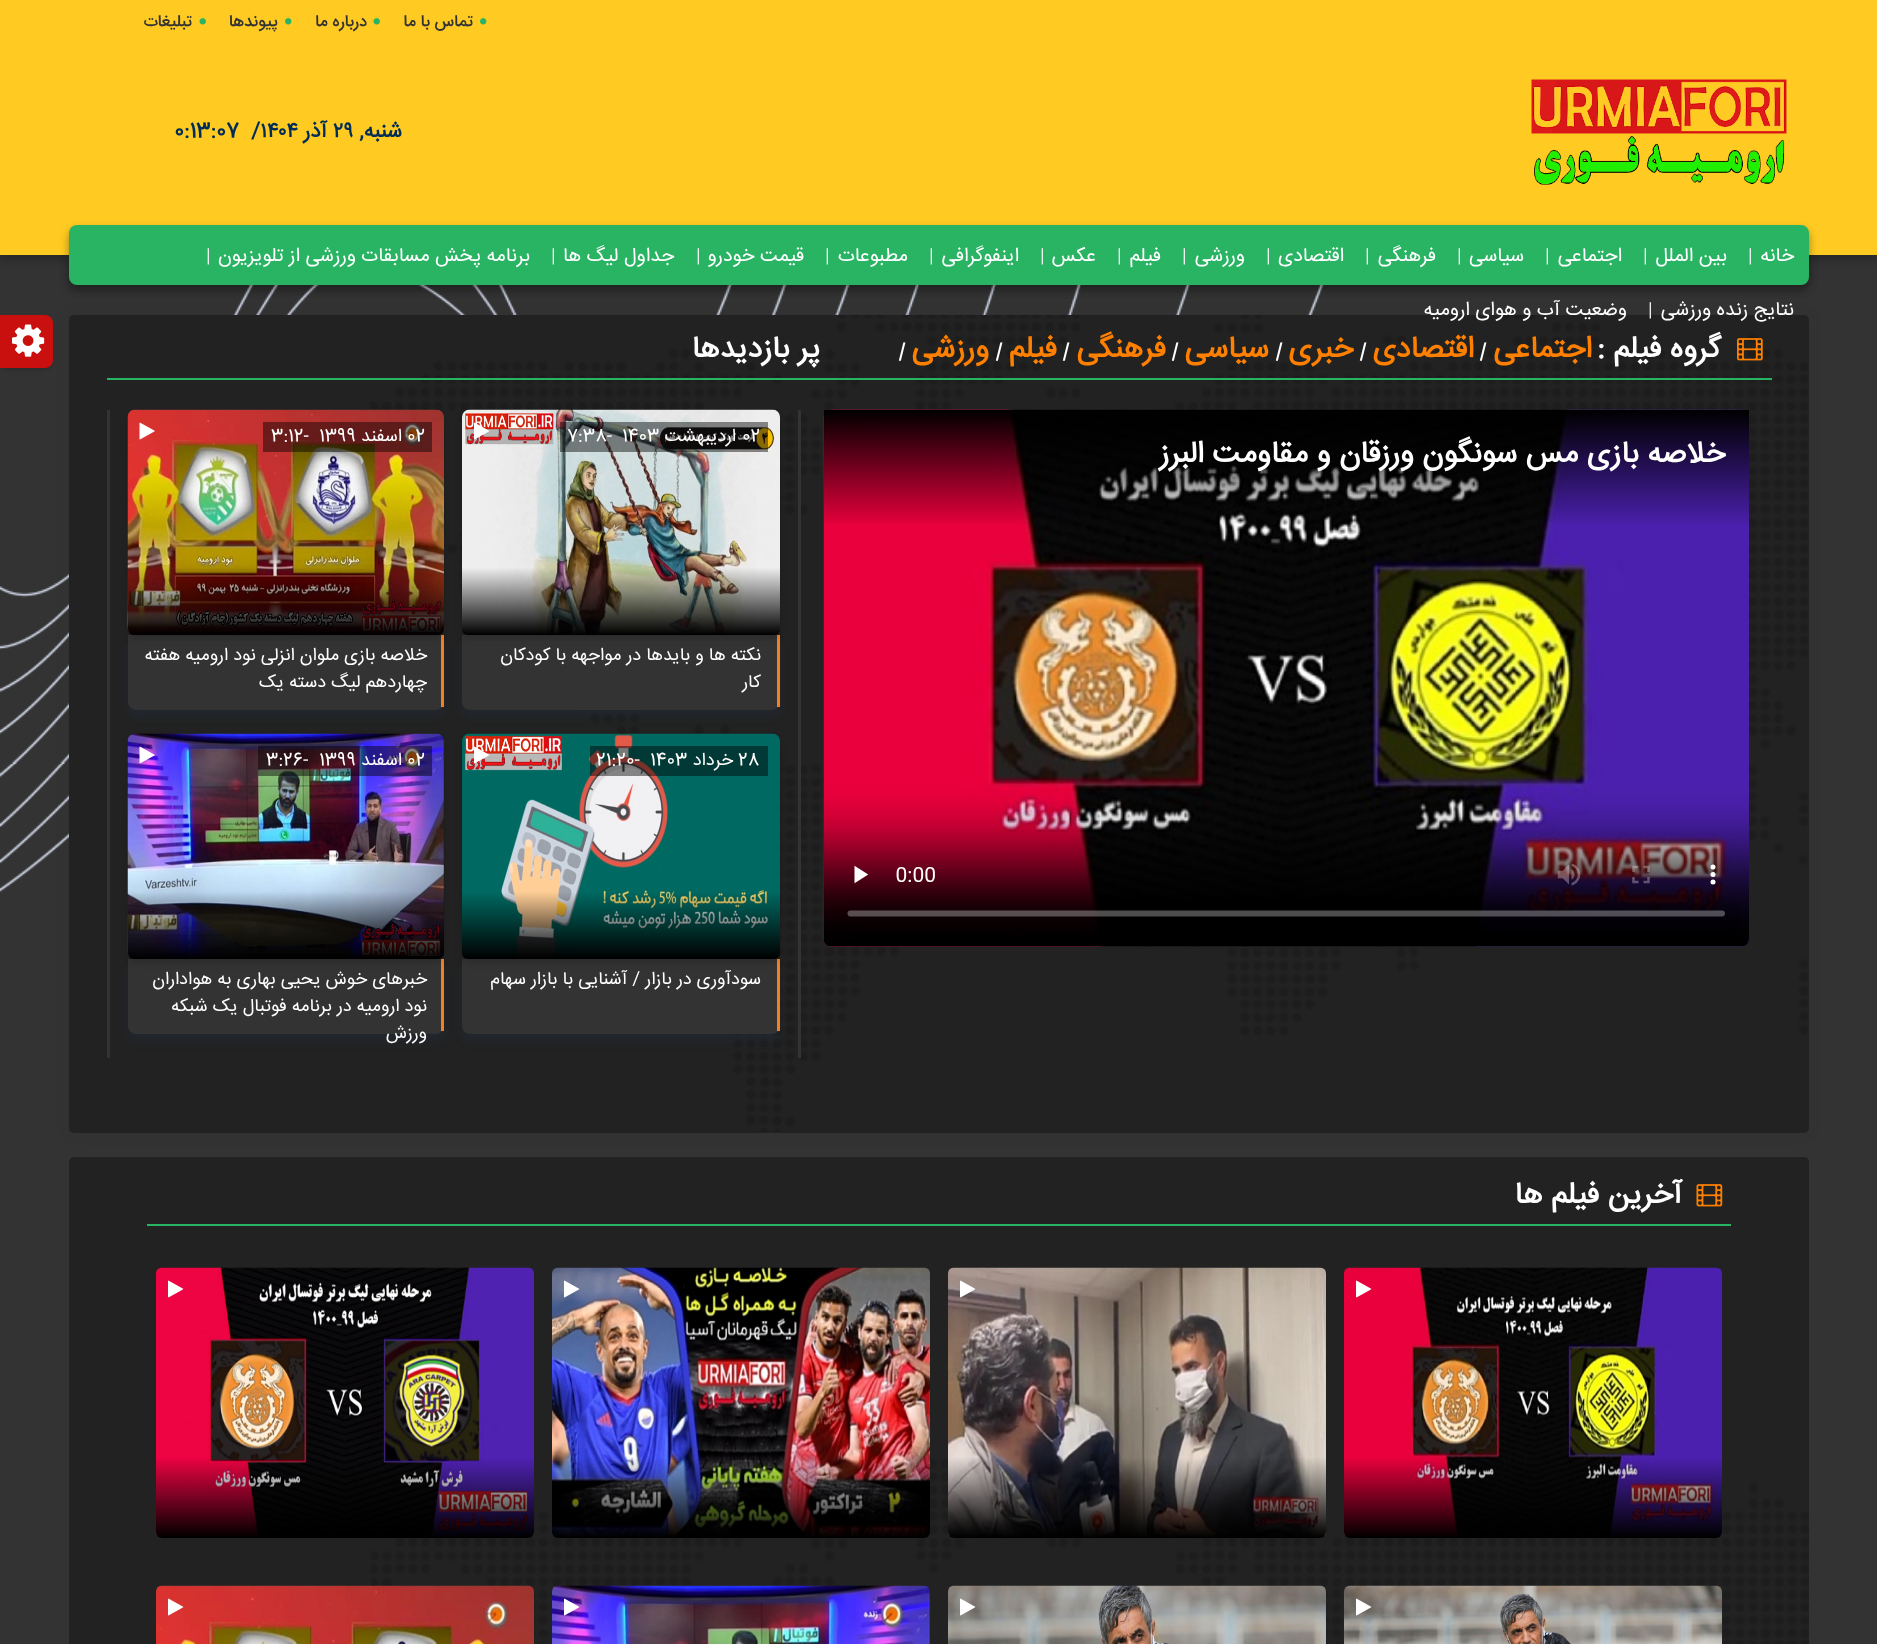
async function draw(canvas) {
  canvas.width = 1877;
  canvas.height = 1644;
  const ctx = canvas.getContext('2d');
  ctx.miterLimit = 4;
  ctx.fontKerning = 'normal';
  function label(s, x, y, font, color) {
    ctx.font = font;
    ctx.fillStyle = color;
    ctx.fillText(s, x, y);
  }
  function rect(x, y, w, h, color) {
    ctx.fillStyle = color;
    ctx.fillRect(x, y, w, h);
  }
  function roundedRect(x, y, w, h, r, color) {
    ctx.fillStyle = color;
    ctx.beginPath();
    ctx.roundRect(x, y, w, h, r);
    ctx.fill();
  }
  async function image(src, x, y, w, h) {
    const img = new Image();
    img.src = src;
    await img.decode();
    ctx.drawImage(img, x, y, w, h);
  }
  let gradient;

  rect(0, 0, 1877, 1644, '#333');
  await image('assets/img1.png', 0, 285, 1324, 607);
  ctx.fillStyle = '#0000003b';
  ctx.filter = 'blur(4.5px)';
  ctx.beginPath();
  ctx.rect(0, 5, 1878, 255);
  ctx.fill();
  ctx.filter = 'none';
  rect(0, 0, 1877, 255, '#ffcb23');
  await image('assets/img2.png', 480, 18, 7, 7);
  ctx.direction = 'rtl';
  label('تماس با ما', 473, 26, '500 16.5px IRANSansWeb', '#333');
  await image('assets/img3.png', 373, 18, 7, 7);
  label('درباره ما', 367, 26, '500 16.5px IRANSansWeb', '#333');
  await image('assets/img2.png', 285, 18, 7, 7);
  label('پیوندها', 278, 26, '500 16.5px IRANSansWeb', '#333');
  await image('assets/img3.png', 199, 18, 7, 7);
  label('تبلیغات', 192, 26, '500 16.5px IRANSansWeb', '#333');
  await image('assets/img4.png', 1531, 79, 256, 106);
  label('شنبه,', 402, 137, 'bold 21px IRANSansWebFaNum', '#002d56');
  ctx.direction = 'ltr';
  label('۲۹', 333, 137, 'bold 21px IRANSansWebFaNum', '#002d56');
  ctx.direction = 'rtl';
  label('آذر', 327, 137, 'bold 21px IRANSansWebFaNum', '#002d56');
  ctx.direction = 'ltr';
  label('/۱۴۰۴', 251, 137, 'bold 21px IRANSansWebFaNum', '#002d56');
  label('0:13:07', 174, 137, 'bold 21px IRANSansWebFaNum', '#002d56');
  ctx.fillStyle = '#0000003b';
  ctx.filter = 'blur(4.5px)';
  ctx.beginPath();
  ctx.roundRect(69, 230, 1740, 60, 8);
  ctx.fill();
  ctx.filter = 'none';
  ctx.fillStyle = '#00000029';
  ctx.filter = 'blur(4.5px)';
  ctx.beginPath();
  ctx.roundRect(69, 230, 1740, 60, 8);
  ctx.fill();
  ctx.filter = 'none';
  roundedRect(69, 225, 1740, 60, 8, '#28b463');
  ctx.direction = 'rtl';
  label('خانه', 1794, 261, '19.5px IRANSansWeb', '#fff');
  ctx.direction = 'ltr';
  label('|', 1748, 261, '18px IRANSansWebFaNum', '#eee');
  ctx.direction = 'rtl';
  label('بین الملل', 1727, 261, '19.5px IRANSansWeb', '#fff');
  ctx.direction = 'ltr';
  label('|', 1643, 261, '18px IRANSansWebFaNum', '#eee');
  ctx.direction = 'rtl';
  label('اجتماعی', 1622, 261, '19.5px IRANSansWeb', '#fff');
  ctx.direction = 'ltr';
  label('|', 1545, 261, '18px IRANSansWebFaNum', '#eee');
  ctx.direction = 'rtl';
  label('سیاسی', 1524, 261, '19.5px IRANSansWeb', '#fff');
  ctx.direction = 'ltr';
  label('|', 1457, 261, '18px IRANSansWebFaNum', '#eee');
  ctx.direction = 'rtl';
  label('فرهنگی', 1436, 261, '19.5px IRANSansWeb', '#fff');
  ctx.direction = 'ltr';
  label('|', 1365, 261, '18px IRANSansWebFaNum', '#eee');
  ctx.direction = 'rtl';
  label('اقتصادی', 1344, 261, '19.5px IRANSansWeb', '#fff');
  ctx.direction = 'ltr';
  label('|', 1266, 261, '18px IRANSansWebFaNum', '#eee');
  ctx.direction = 'rtl';
  label('ورزشی', 1245, 261, '19.5px IRANSansWeb', '#fff');
  ctx.direction = 'ltr';
  label('|', 1182, 261, '18px IRANSansWebFaNum', '#eee');
  ctx.direction = 'rtl';
  label('فیلم', 1161, 261, '19.5px IRANSansWeb', '#fff');
  ctx.direction = 'ltr';
  label('|', 1117, 261, '18px IRANSansWebFaNum', '#eee');
  ctx.direction = 'rtl';
  label('عکس', 1096, 261, '19.5px IRANSansWeb', '#fff');
  ctx.direction = 'ltr';
  label('|', 1040, 261, '18px IRANSansWebFaNum', '#eee');
  ctx.direction = 'rtl';
  label('اینفوگرافی', 1019, 261, '19.5px IRANSansWeb', '#fff');
  ctx.direction = 'ltr';
  label('|', 929, 261, '18px IRANSansWebFaNum', '#eee');
  ctx.direction = 'rtl';
  label('مطبوعات', 908, 261, '19.5px IRANSansWeb', '#fff');
  ctx.direction = 'ltr';
  label('|', 825, 261, '18px IRANSansWebFaNum', '#eee');
  ctx.direction = 'rtl';
  label('قیمت خودرو', 804, 261, '19.5px IRANSansWeb', '#fff');
  ctx.direction = 'ltr';
  label('|', 696, 261, '18px IRANSansWebFaNum', '#eee');
  ctx.direction = 'rtl';
  label('جداول لیگ ها', 674, 261, '19.5px IRANSansWeb', '#fff');
  ctx.direction = 'ltr';
  label('|', 551, 261, '18px IRANSansWebFaNum', '#eee');
  ctx.direction = 'rtl';
  label('برنامه پخش مسابقات ورزشی از تلویزیون', 530, 261, '19.5px IRANSansWeb', '#fff');
  ctx.direction = 'ltr';
  label('|', 206, 261, '18px IRANSansWebFaNum', '#eee');
  ctx.fillStyle = '#0000000d';
  ctx.filter = 'blur(7.5px)';
  ctx.beginPath();
  ctx.roundRect(69, 315, 1740, 818, 5);
  ctx.fill();
  ctx.filter = 'none';
  roundedRect(69, 315, 1740, 818, 5, '#222');
  await image('assets/img5.png', 370, 315, 1438, 817);
  ctx.direction = 'rtl';
  label('نتایج زنده ورزشی', 1794, 315, '19.5px IRANSansWeb', '#fff');
  ctx.direction = 'ltr';
  label('|', 1648, 315, '18px IRANSansWebFaNum', '#eee');
  ctx.direction = 'rtl';
  label('وضعیت آب و هوای ارومیه', 1627, 315, '19.5px IRANSansWeb', '#fff');
  rect(107, 378, 1665, 2, '#28b463');
  await image('assets/img6.png', 1737, 338, 26, 23);
  label('گروه فیلم :', 1721, 357, 'bold 30px IRANSansWebFaNum', '#fff');
  label('اجتماعی', 1592, 357, 'bold 30px IRANSansWebFaNum', '#ff8000');
  ctx.direction = 'ltr';
  label('|', 1479, 357, 'italic bold 19.5px IRANSansWebFaNum', '#fff');
  ctx.direction = 'rtl';
  label('اقتصادی', 1474, 357, 'bold 30px IRANSansWebFaNum', '#ff8000');
  ctx.direction = 'ltr';
  label('|', 1359, 357, 'italic bold 19.5px IRANSansWebFaNum', '#fff');
  ctx.direction = 'rtl';
  label('خبری', 1353, 357, 'bold 30px IRANSansWebFaNum', '#ff8000');
  ctx.direction = 'ltr';
  label('|', 1275, 357, 'italic bold 19.5px IRANSansWebFaNum', '#fff');
  ctx.direction = 'rtl';
  label('سیاسی', 1269, 357, 'bold 30px IRANSansWebFaNum', '#ff8000');
  ctx.direction = 'ltr';
  label('|', 1171, 357, 'italic bold 19.5px IRANSansWebFaNum', '#fff');
  ctx.direction = 'rtl';
  label('فرهنگی', 1166, 357, 'bold 30px IRANSansWebFaNum', '#ff8000');
  ctx.direction = 'ltr';
  label('|', 1062, 357, 'italic bold 19.5px IRANSansWebFaNum', '#fff');
  ctx.direction = 'rtl';
  label('فیلم', 1057, 357, 'bold 30px IRANSansWebFaNum', '#ff8000');
  ctx.direction = 'ltr';
  label('|', 995, 357, 'italic bold 19.5px IRANSansWebFaNum', '#fff');
  ctx.direction = 'rtl';
  label('ورزشی', 989, 357, 'bold 30px IRANSansWebFaNum', '#ff8000');
  ctx.direction = 'ltr';
  label('|', 898, 357, 'italic bold 19.5px IRANSansWebFaNum', '#fff');
  ctx.direction = 'rtl';
  label('پر بازدیدها', 820, 357, 'bold 30px IRANSansWebFaNum', '#fff');
  await image('assets/img7.png', 823, 409, 926, 538);
  gradient = ctx.createLinearGradient(1286, 527, 1286, 410);
  gradient.addColorStop(0, '#00000000');
  gradient.addColorStop(0.6, '#00000099');
  gradient.addColorStop(0.8, '#000000cc');
  gradient.addColorStop(1, '#000');
  ctx.fillStyle = gradient;
  ctx.fillRect(824, 410, 925, 114);
  label('خلاصه بازی مس سونگون ورزقان و مقاومت البرز', 1725, 462, 'bold 30px IRANSansWebFaNum', '#fff');
  rect(798, 410, 3, 648, '#333');
  rect(107, 410, 3, 648, '#333');
  ctx.fillStyle = '#1c4c9c1a';
  ctx.filter = 'blur(5px)';
  ctx.beginPath();
  ctx.roundRect(462, 642, 318, 75, 8);
  ctx.fill();
  ctx.filter = 'none';
  ctx.fillStyle = '#333';
  ctx.beginPath();
  ctx.roundRect(462, 635, 318, 75, [0, 0, 8, 8]);
  ctx.fill();
  rect(777, 635, 3, 72, '#f37f22');
  ctx.fillStyle = '#00000024';
  ctx.filter = 'blur(3px)';
  ctx.beginPath();
  ctx.roundRect(462, 414, 318, 225, 8);
  ctx.fill();
  ctx.filter = 'none';
  await image('assets/img8.png', 462, 409, 318, 226);
  gradient = ctx.createLinearGradient(621, 410, 621, 635);
  gradient.addColorStop(0, '#00000000');
  gradient.addColorStop(0.7, '#00000000');
  gradient.addColorStop(1, '#000');
  ctx.fillStyle = gradient;
  ctx.beginPath();
  ctx.roundRect(462, 410, 318, 225, 6);
  ctx.fill();
  rect(560, 422, 208, 30, '#00000073');
  ctx.direction = 'ltr';
  label('02', 742, 441, '18px IRANSansWebFaNum', '#fff');
  ctx.direction = 'rtl';
  label('اردیبهشت', 736, 441, '18px IRANSansWebFaNum', '#fff');
  ctx.direction = 'ltr';
  label('1403', 622, 441, '18px IRANSansWebFaNum', '#fff');
  label('7:38-', 567, 441, '18px IRANSansWebFaNum', '#fff');
  await image('assets/img9.png', 474, 422, 16, 18);
  ctx.direction = 'rtl';
  label('نکته ها و بایدها در مواجهه با کودکان', 761, 660, '18px IRANSansWebFaNum', '#fff');
  label('کار', 761, 687, '18px IRANSansWebFaNum', '#fff');
  ctx.fillStyle = '#1c4c9c1a';
  ctx.filter = 'blur(5px)';
  ctx.beginPath();
  ctx.roundRect(128, 642, 316, 75, 8);
  ctx.fill();
  ctx.filter = 'none';
  ctx.fillStyle = '#333';
  ctx.beginPath();
  ctx.roundRect(128, 635, 316, 75, [0, 0, 8, 8]);
  ctx.fill();
  rect(441, 635, 3, 72, '#f37f22');
  ctx.fillStyle = '#00000024';
  ctx.filter = 'blur(3px)';
  ctx.beginPath();
  ctx.roundRect(128, 414, 316, 225, 8);
  ctx.fill();
  ctx.filter = 'none';
  await image('assets/img10.png', 127, 409, 317, 226);
  gradient = ctx.createLinearGradient(286, 410, 286, 635);
  gradient.addColorStop(0, '#00000000');
  gradient.addColorStop(0.7, '#00000000');
  gradient.addColorStop(1, '#000');
  ctx.fillStyle = gradient;
  ctx.beginPath();
  ctx.roundRect(128, 410, 316, 225, 6);
  ctx.fill();
  rect(263, 422, 169, 30, '#00000073');
  ctx.direction = 'ltr';
  label('02', 407, 441, '18px IRANSansWebFaNum', '#fff');
  ctx.direction = 'rtl';
  label('اسفند', 402, 441, '18px IRANSansWebFaNum', '#fff');
  ctx.direction = 'ltr';
  label('1399', 319, 441, '18px IRANSansWebFaNum', '#fff');
  label('3:12-', 271, 441, '18px IRANSansWebFaNum', '#fff');
  await image('assets/img11.png', 139, 422, 16, 18);
  ctx.direction = 'rtl';
  label('خلاصه بازی ملوان انزلی نود ارومیه هفته', 427, 660, '18px IRANSansWebFaNum', '#fff');
  label('چهاردهم لیگ دسته یک', 427, 687, '18px IRANSansWebFaNum', '#fff');
  ctx.fillStyle = '#1c4c9c1a';
  ctx.filter = 'blur(5px)';
  ctx.beginPath();
  ctx.roundRect(462, 966, 318, 75, 8);
  ctx.fill();
  ctx.filter = 'none';
  ctx.fillStyle = '#333';
  ctx.beginPath();
  ctx.roundRect(462, 959, 318, 75, [0, 0, 8, 8]);
  ctx.fill();
  rect(777, 959, 3, 72, '#f37f22');
  ctx.fillStyle = '#00000024';
  ctx.filter = 'blur(3px)';
  ctx.beginPath();
  ctx.roundRect(462, 738, 318, 225, 8);
  ctx.fill();
  ctx.filter = 'none';
  await image('assets/img12.png', 462, 733, 318, 226);
  gradient = ctx.createLinearGradient(621, 734, 621, 959);
  gradient.addColorStop(0, '#00000000');
  gradient.addColorStop(0.7, '#00000000');
  gradient.addColorStop(1, '#000');
  ctx.fillStyle = gradient;
  ctx.beginPath();
  ctx.roundRect(462, 734, 318, 225, 6);
  ctx.fill();
  rect(590, 746, 178, 30, '#00000073');
  ctx.direction = 'ltr';
  label('28', 738, 765, '18px IRANSansWebFaNum', '#fff');
  ctx.direction = 'rtl';
  label('خرداد', 733, 765, '18px IRANSansWebFaNum', '#fff');
  ctx.direction = 'ltr';
  label('1403', 650, 765, '18px IRANSansWebFaNum', '#fff');
  label('21:20-', 596, 765, '18px IRANSansWebFaNum', '#fff');
  await image('assets/img13.png', 474, 746, 16, 18);
  ctx.direction = 'rtl';
  label('سودآوری در بازار / آشنایی با بازار سهام', 761, 984, '18px IRANSansWebFaNum', '#fff');
  ctx.fillStyle = '#1c4c9c1a';
  ctx.filter = 'blur(5px)';
  ctx.beginPath();
  ctx.roundRect(128, 966, 316, 75, 8);
  ctx.fill();
  ctx.filter = 'none';
  ctx.fillStyle = '#333';
  ctx.beginPath();
  ctx.roundRect(128, 959, 316, 75, [0, 0, 8, 8]);
  ctx.fill();
  rect(441, 959, 3, 72, '#f37f22');
  ctx.fillStyle = '#00000024';
  ctx.filter = 'blur(3px)';
  ctx.beginPath();
  ctx.roundRect(128, 738, 316, 225, 8);
  ctx.fill();
  ctx.filter = 'none';
  await image('assets/img14.png', 127, 733, 317, 226);
  gradient = ctx.createLinearGradient(286, 734, 286, 959);
  gradient.addColorStop(0, '#00000000');
  gradient.addColorStop(0.7, '#00000000');
  gradient.addColorStop(1, '#000');
  ctx.fillStyle = gradient;
  ctx.beginPath();
  ctx.roundRect(128, 734, 316, 225, 6);
  ctx.fill();
  rect(258, 746, 174, 30, '#00000073');
  ctx.direction = 'ltr';
  label('02', 407, 765, '18px IRANSansWebFaNum', '#fff');
  ctx.direction = 'rtl';
  label('اسفند', 402, 765, '18px IRANSansWebFaNum', '#fff');
  ctx.direction = 'ltr';
  label('1399', 319, 765, '18px IRANSansWebFaNum', '#fff');
  label('3:26-', 266, 765, '18px IRANSansWebFaNum', '#fff');
  await image('assets/img15.png', 139, 746, 16, 18);
  ctx.direction = 'rtl';
  label('خبرهای خوش یحیی بهاری به هواداران', 427, 984, '18px IRANSansWebFaNum', '#fff');
  label('نود ارومیه در برنامه فوتبال یک شبکه', 427, 1011, '18px IRANSansWebFaNum', '#fff');
  label('ورزش', 427, 1038, '18px IRANSansWebFaNum', '#fff');
  roundedRect(69, 1157, 1740, 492, 5, '#222');
  await image('assets/img16.png', 371, 1458, 1438, 186);
  rect(147, 1224, 1584, 2, '#28b463');
  await image('assets/img17.png', 1696, 1184, 27, 23);
  label('آخرین فیلم ها', 1682, 1203, 'bold 30px IRANSansWebFaNum', '#fff');
  await image('assets/img18.png', 1344, 1267, 378, 271);
  gradient = ctx.createLinearGradient(1533, 1268, 1533, 1538);
  gradient.addColorStop(0, '#00000000');
  gradient.addColorStop(0.7, '#00000000');
  gradient.addColorStop(1, '#000');
  ctx.fillStyle = gradient;
  ctx.beginPath();
  ctx.roundRect(1344, 1268, 378, 270, 6);
  ctx.fill();
  await image('assets/img19.png', 1356, 1280, 16, 18);
  await image('assets/img20.png', 948, 1267, 378, 271);
  gradient = ctx.createLinearGradient(1137, 1268, 1137, 1538);
  gradient.addColorStop(0, '#00000000');
  gradient.addColorStop(0.7, '#00000000');
  gradient.addColorStop(1, '#000');
  ctx.fillStyle = gradient;
  ctx.beginPath();
  ctx.roundRect(948, 1268, 378, 270, 6);
  ctx.fill();
  await image('assets/img21.png', 960, 1280, 16, 18);
  await image('assets/img22.png', 552, 1267, 378, 271);
  gradient = ctx.createLinearGradient(741, 1268, 741, 1538);
  gradient.addColorStop(0, '#00000000');
  gradient.addColorStop(0.7, '#00000000');
  gradient.addColorStop(1, '#000');
  ctx.fillStyle = gradient;
  ctx.beginPath();
  ctx.roundRect(552, 1268, 378, 270, 6);
  ctx.fill();
  await image('assets/img23.png', 564, 1280, 16, 18);
  await image('assets/img24.png', 156, 1267, 378, 271);
  gradient = ctx.createLinearGradient(345, 1268, 345, 1538);
  gradient.addColorStop(0, '#00000000');
  gradient.addColorStop(0.7, '#00000000');
  gradient.addColorStop(1, '#000');
  ctx.fillStyle = gradient;
  ctx.beginPath();
  ctx.roundRect(156, 1268, 378, 270, 6);
  ctx.fill();
  await image('assets/img25.png', 168, 1280, 16, 18);
  await image('assets/img26.png', 1344, 1585, 378, 59);
  await image('assets/img27.png', 1356, 1598, 16, 18);
  await image('assets/img28.png', 948, 1585, 378, 59);
  await image('assets/img29.png', 960, 1598, 16, 18);
  await image('assets/img30.png', 552, 1585, 378, 59);
  await image('assets/img31.png', 564, 1598, 16, 18);
  await image('assets/img32.png', 156, 1585, 378, 59);
  await image('assets/img33.png', 168, 1598, 16, 18);
  ctx.fillStyle = '#00000033';
  ctx.filter = 'blur(2px)';
  ctx.beginPath();
  ctx.roundRect(3, 323, 47, 46, 5);
  ctx.fill();
  ctx.filter = 'none';
  ctx.fillStyle = '#ca0f0f';
  ctx.beginPath();
  ctx.roundRect(0, 315, 53, 53, [0, 8, 8, 0]);
  ctx.fill();
  await image('assets/img34.png', 12, 324, 33, 33);
}

draw(document.querySelector('canvas'));
